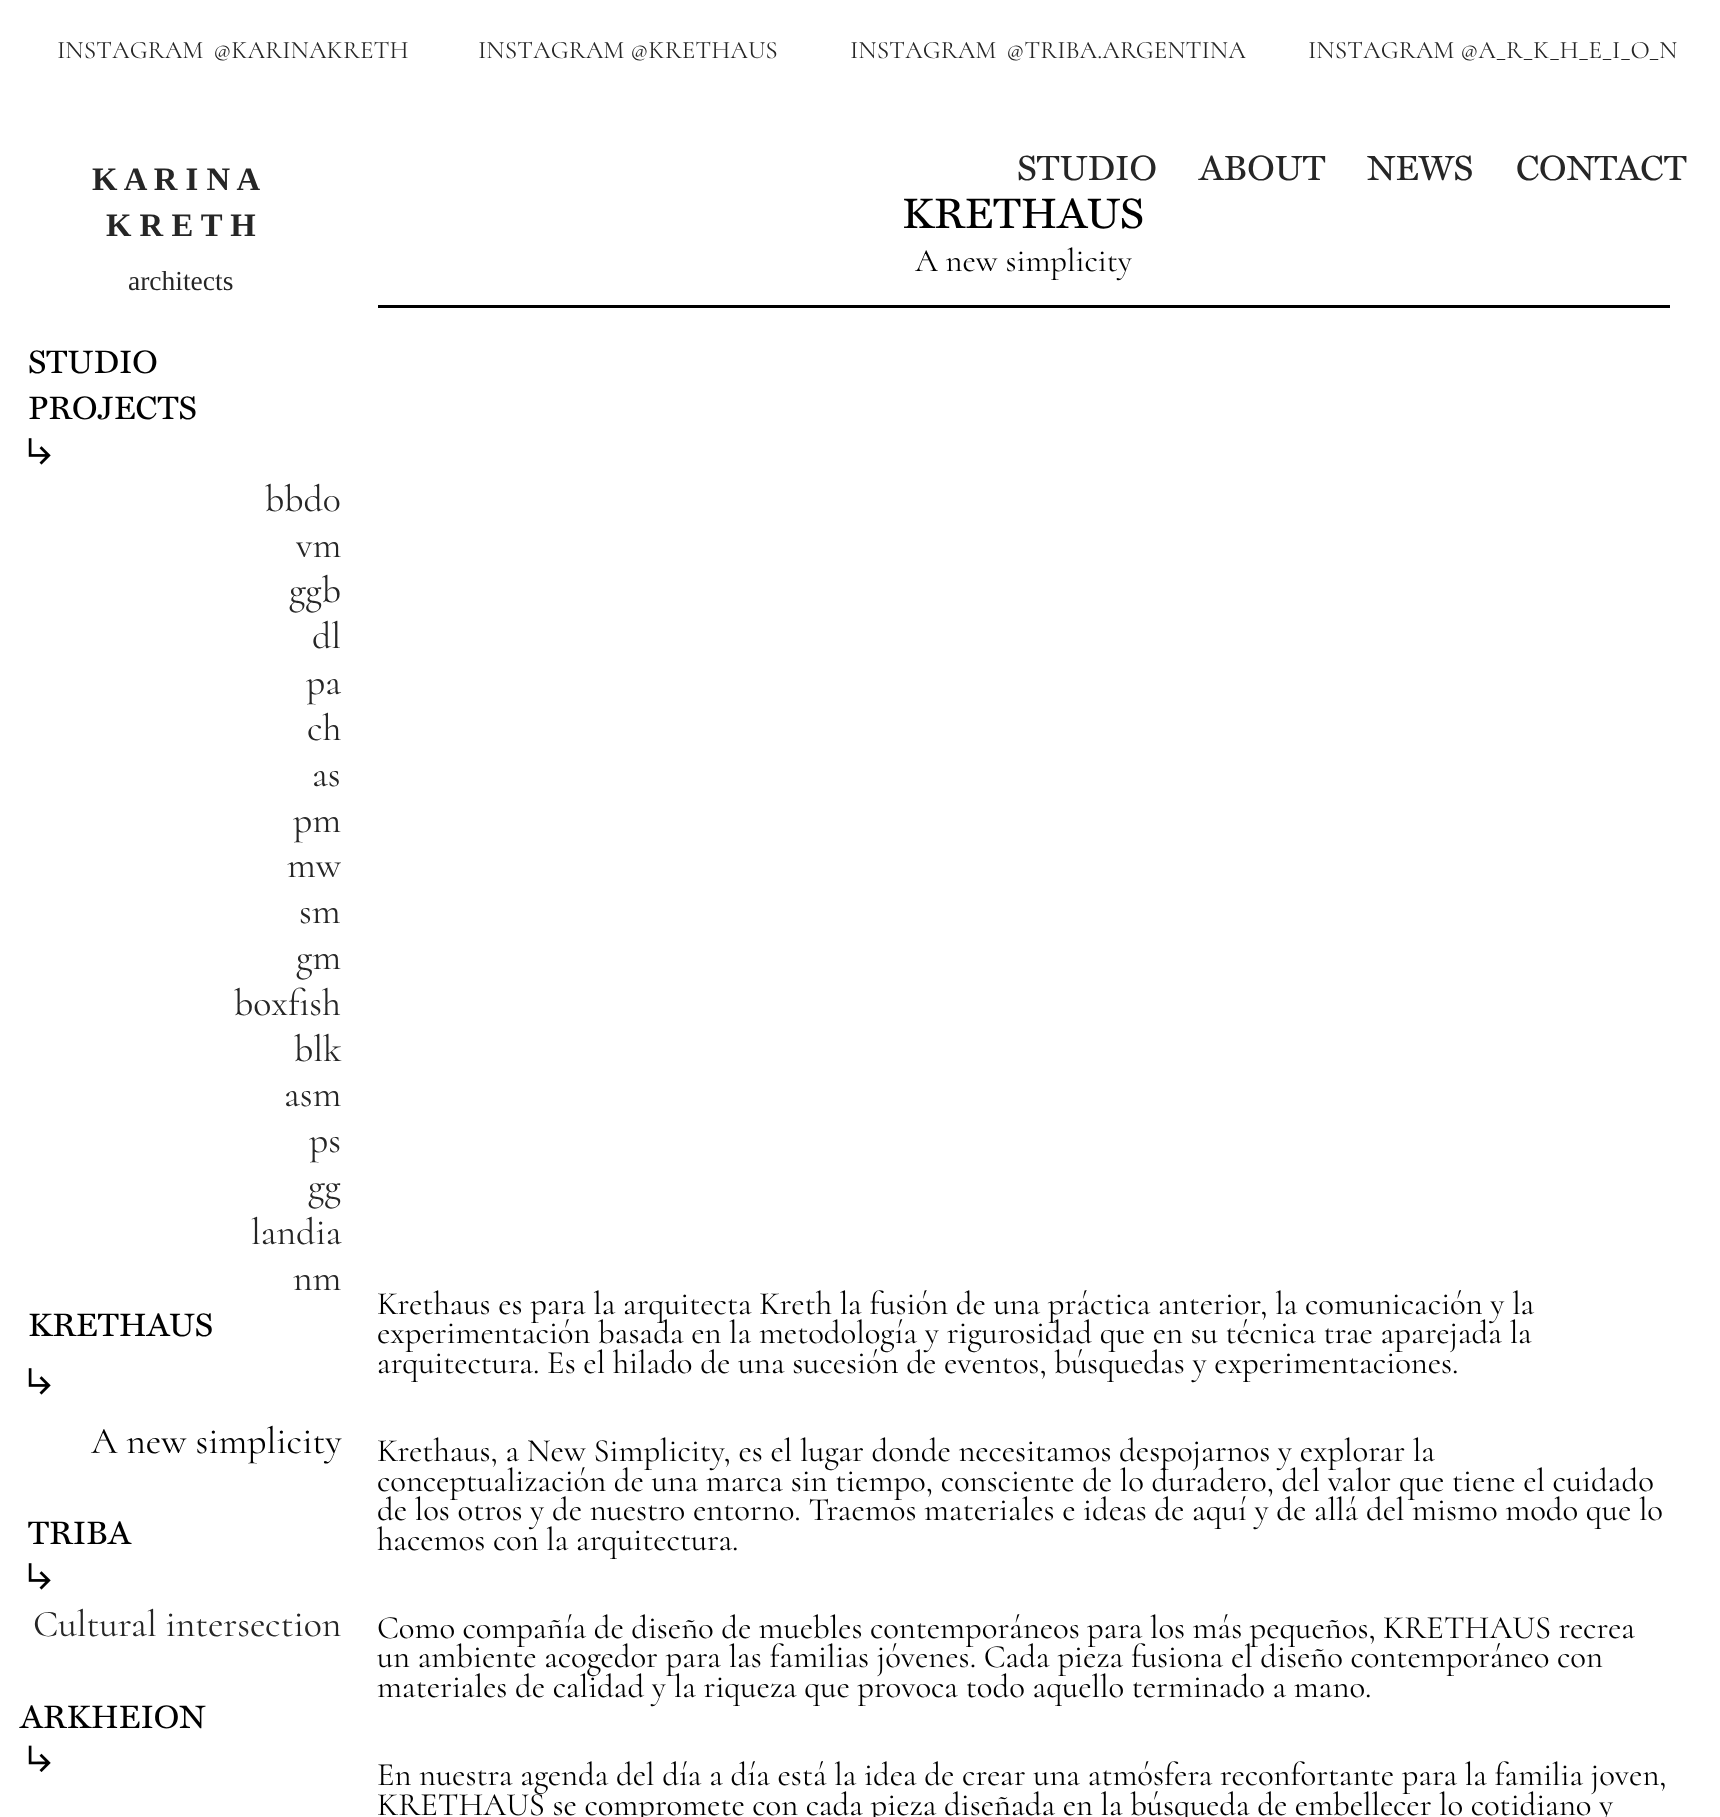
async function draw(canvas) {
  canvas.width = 1720;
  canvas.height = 1817;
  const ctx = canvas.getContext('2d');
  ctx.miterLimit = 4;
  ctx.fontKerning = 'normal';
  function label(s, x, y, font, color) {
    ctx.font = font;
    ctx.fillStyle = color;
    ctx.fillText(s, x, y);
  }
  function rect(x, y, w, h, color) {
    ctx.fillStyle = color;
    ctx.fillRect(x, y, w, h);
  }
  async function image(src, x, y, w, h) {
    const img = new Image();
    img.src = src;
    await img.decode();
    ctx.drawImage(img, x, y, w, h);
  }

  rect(0, 0, 1720, 1817, '#fff');
  ctx.wordSpacing = '-1px';
  label('INSTAGRAM  @KARINAKRETH', 57, 58, '25.2px Cormorant', '#262626');
  ctx.wordSpacing = '0px';
  label('INSTAGRAM @KRETHAUS', 478, 58, '25.2px Cormorant', '#262626');
  ctx.wordSpacing = '-1px';
  label('INSTAGRAM  @TRIBA.ARGENTINA', 850, 58, '25.2px Cormorant', '#262626');
  ctx.wordSpacing = '0px';
  label('INSTAGRAM @A_R_K_H_E_I_O_N', 1308, 58, '25.2px Cormorant', '#262626');
  label('STUDIO', 1017, 180, '35.25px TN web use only', '#262626');
  label('ABOUT', 1199, 180, '35.25px TN web use only', '#262626');
  label('NEWS', 1367, 180, '35.25px TN web use only', '#262626');
  label('CONTACT', 1516, 180, '35.25px TN web use only', '#262626');
  label('K A R I N A', 92, 190, 'bold 32.7px Liberation Serif', '#262626');
  label('K R E T H', 106, 236, 'bold 32.7px Liberation Serif', '#262626');
  label('architects', 128, 290, '27.5px Liberation Serif', '#262626');
  label('STUDIO', 28, 373, '32.7px TN web use only', '#000');
  label('PROJECTS', 28, 419, '32.7px TN web use only', '#000');
  await image('assets/img1.png', 28, 438, 23, 27);
  label('bbd0', 265, 511, '37.75px Cormorant', '#262626');
  label('vm', 296, 557, '37.75px Cormorant', '#262626');
  label('ggb', 289, 602, '37.75px Cormorant', '#262626');
  label('dl', 312, 648, '37.75px Cormorant', '#262626');
  label('pa', 306, 694, '37.75px Cormorant', '#262626');
  label('ch', 307, 740, '37.75px Cormorant', '#262626');
  label('as', 312, 786, '37.75px Cormorant', '#262626');
  label('pm', 293, 832, '37.75px Cormorant', '#262626');
  label('mw', 287, 877, '37.75px Cormorant', '#262626');
  label('sm', 299, 923, '37.75px Cormorant', '#262626');
  label('gm', 296, 969, '37.75px Cormorant', '#262626');
  label('boxfish', 234, 1015, '37.75px Cormorant', '#262626');
  label('blk', 294, 1061, '37.75px Cormorant', '#262626');
  label('asm', 284, 1106, '37.75px Cormorant', '#262626');
  label('ps', 309, 1152, '37.75px Cormorant', '#262626');
  label('gg', 308, 1198, '37.75px Cormorant', '#262626');
  label('landia', 251, 1244, '37.75px Cormorant', '#262626');
  label('nm', 293, 1290, '37.75px Cormorant', '#262626');
  label('KRETHAUS', 28, 1336, '32.7px TN web use only', '#000');
  await image('assets/img1.png', 28, 1368, 23, 27);
  label('A new simplicity', 91, 1453, '37.75px Cormorant', '#000');
  label('TRIBA', 28, 1544, '32.7px TN web use only', '#000');
  await image('assets/img1.png', 28, 1563, 23, 27);
  label('Cultural intersection', 33, 1636, '37.75px Cormorant', '#262626');
  label('ARKHEION', 20, 1728, '32.7px TN web use only', '#000');
  await image('assets/img2.png', 28, 1745, 23, 27);
  label('KRETHAUS', 902, 228, '42.75px TN web use only', '#000');
  label('A new simplicity', 915, 271, '32.7px Cormorant', '#000');
  rect(378, 305, 1292, 3, '#000');
  label('Krethaus es para la arquitecta Kreth la fusión de una práctica anterior, la comunicación y la', 377, 1314, '32.7px Cormorant', '#000');
  label('experimentación basada en la metodología y rigurosidad que en su técnica trae aparejada la', 377, 1343, '32.7px Cormorant', '#000');
  label('arquitectura. Es el hilado de una sucesión de eventos, búsquedas y experimentaciones.', 377, 1373, '32.7px Cormorant', '#000');
  label('Krethaus, a New Simplicity, es el lugar donde necesitamos despojarnos y explorar la', 377, 1461, '32.7px Cormorant', '#000');
  label('conceptualización de una marca sin tiempo, consciente de lo duradero, del valor que tiene el cuidado', 377, 1491, '32.7px Cormorant', '#000');
  label('de los otros y de nuestro entorno. Traemos materiales e ideas de aquí y de allá del mismo modo que lo', 377, 1520, '32.7px Cormorant', '#000');
  label('hacemos con la arquitectura.', 377, 1550, '32.7px Cormorant', '#000');
  ctx.wordSpacing = '-0.25px';
  label('Como compañía de diseño de muebles contemporáneos para los más pequeños, KRETHAUS recrea', 377, 1638, '32.7px Cormorant', '#000');
  ctx.wordSpacing = '0px';
  label('un ambiente acogedor para las familias jóvenes. Cada pieza fusiona el diseño contemporáneo con', 377, 1667, '32.7px Cormorant', '#000');
  label('materiales de calidad y la riqueza que provoca todo aquello terminado a mano.', 377, 1697, '32.7px Cormorant', '#000');
  label('En nuestra agenda del día a día está la idea de crear una atmósfera reconfortante para la familia joven,', 377, 1785, '32.7px Cormorant', '#000');
  ctx.wordSpacing = '-0.1px';
  label('KRETHAUS se compromete con cada pieza diseñada en la búsqueda de embellecer lo cotidiano y', 377, 1815, '32.7px Cormorant', '#000');
}

draw(document.querySelector('canvas'));
